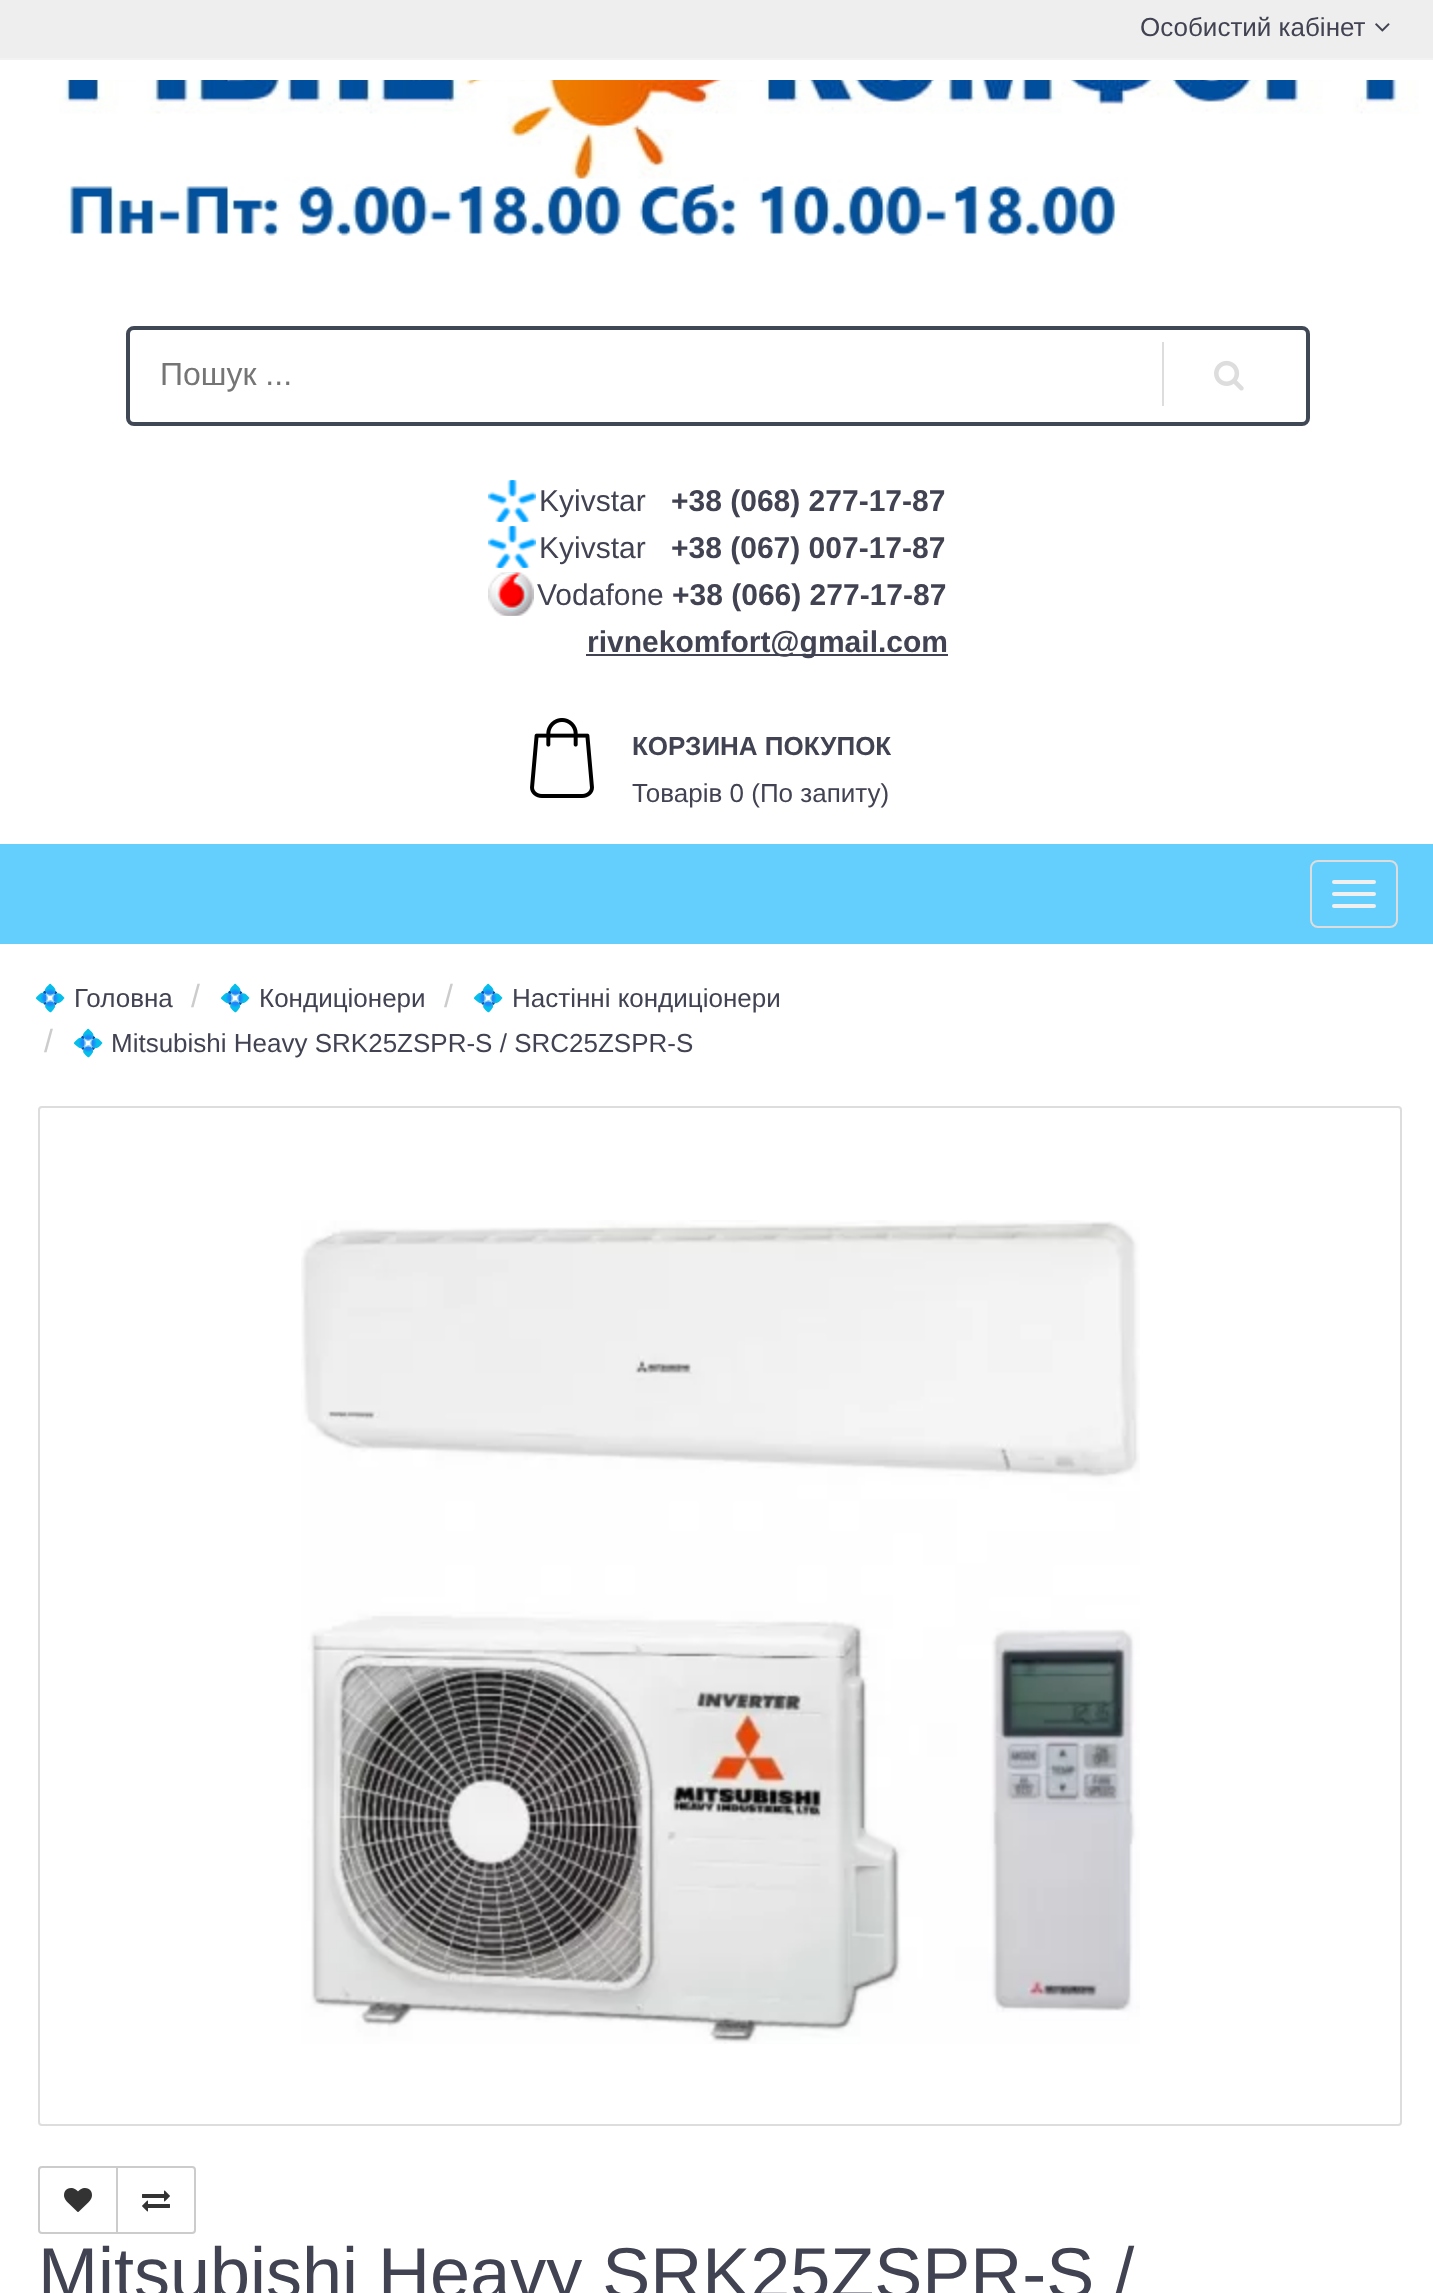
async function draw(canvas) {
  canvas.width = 1433;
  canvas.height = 2293;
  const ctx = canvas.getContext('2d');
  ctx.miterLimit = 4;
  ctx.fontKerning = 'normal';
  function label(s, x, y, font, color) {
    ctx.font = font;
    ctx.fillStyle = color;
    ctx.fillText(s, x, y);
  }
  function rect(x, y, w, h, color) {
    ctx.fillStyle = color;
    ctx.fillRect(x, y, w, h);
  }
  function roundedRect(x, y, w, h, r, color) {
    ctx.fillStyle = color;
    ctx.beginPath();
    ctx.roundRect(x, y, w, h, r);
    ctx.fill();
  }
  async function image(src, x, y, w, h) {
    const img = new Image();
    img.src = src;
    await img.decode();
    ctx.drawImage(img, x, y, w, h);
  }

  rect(0, 0, 1433, 2293, '#fff');
  rect(0, 0, 1433, 58, '#eee');
  rect(0, 58, 1433, 2, '#f2f2f2');
  label('Особистий кабінет', 1140, 36, '26px Liberation Sans', '#424352');
  await image('assets/img1.png', 1375, 23, 15, 9);
  await image('assets/img2.png', 59, 80, 1360, 156);
  ctx.beginPath();
  ctx.roundRect(128, 328, 1180, 96, 6);
  ctx.strokeStyle = '#404755';
  ctx.lineWidth = 4;
  ctx.stroke();
  label('Пошук ...', 160, 385, '32px Liberation Sans', '#757575');
  rect(1162, 342, 2, 64, '#ddd');
  await image('assets/img3.png', 1214, 360, 30, 31);
  await image('assets/img4.png', 488, 480, 48, 42);
  label('Kyivstar', 539, 511, '30px Liberation Sans', '#424352');
  label('+38 (068) 277-17-87', 671, 511, 'bold 30px Liberation Sans', '#424352');
  await image('assets/img4.png', 488, 526, 48, 42);
  label('Kyivstar', 539, 558, '30px Liberation Sans', '#424352');
  label('+38 (067) 007-17-87', 671, 558, 'bold 30px Liberation Sans', '#424352');
  await image('assets/img5.png', 488, 572, 46, 44);
  label('Vodafone', 537, 605, '30px Liberation Sans', '#424352');
  label('+38 (066) 277-17-87', 672, 605, 'bold 30px Liberation Sans', '#424352');
  rect(586, 654, 362, 2, '#424352');
  label('rivnekomfort@gmail.com', 587, 652, 'bold 30px Liberation Sans', '#424352');
  await image('assets/img6.png', 530, 718, 64, 80);
  label('КОРЗИНА ПОКУПОК', 632, 755, 'bold 26px Liberation Sans', '#424352');
  label('Товарів 0 (По запиту)', 632, 802, '26px Liberation Sans', '#424352');
  rect(0, 844, 1433, 100, '#64cefd');
  ctx.beginPath();
  ctx.roundRect(1311, 861, 86, 66, 7);
  ctx.strokeStyle = '#ddd';
  ctx.lineWidth = 2;
  ctx.stroke();
  roundedRect(1332, 880, 44, 4, 2, '#f0f0f0');
  roundedRect(1332, 892, 44, 4, 2, '#f0f0f0');
  roundedRect(1332, 904, 44, 4, 2, '#f0f0f0');
  label('💠', 34, 1007, '26px Noto Color Emoji', '#424352');
  label('Головна', 74, 1007, '26px Liberation Sans', '#424352');
  label('/', 191, 1007, '32px Liberation Sans', '#ccc');
  label('💠', 219, 1007, '26px Noto Color Emoji', '#424352');
  label('Кондиціонери', 259, 1007, '26px Liberation Sans', '#424352');
  label('/', 444, 1007, '32px Liberation Sans', '#ccc');
  label('💠', 472, 1007, '26px Noto Color Emoji', '#424352');
  label('Настінні кондиціонери', 512, 1007, '26px Liberation Sans', '#424352');
  label('/', 44, 1052, '32px Liberation Sans', '#ccc');
  label('💠', 72, 1052, '26px Noto Color Emoji', '#424352');
  label('Mitsubishi Heavy SRK25ZSPR-S / SRC25ZSPR-S', 111, 1052, '26px Liberation Sans', '#424352');
  ctx.beginPath();
  ctx.roundRect(39, 1107, 1362, 1018, 3);
  ctx.stroke();
  await image('assets/img7.png', 301, 1220, 839, 824);
  ctx.beginPath();
  ctx.roundRect(39, 2167, 78, 66, [3, 0, 0, 3]);
  ctx.strokeStyle = '#ccc';
  ctx.stroke();
  await image('assets/img8.png', 64, 2188, 28, 24);
  ctx.fillStyle = '#fff';
  ctx.beginPath();
  ctx.roundRect(117, 2167, 78, 66, [0, 3, 3, 0]);
  ctx.fill();
  ctx.stroke();
  await image('assets/img9.png', 142, 2190, 28, 22);
  label('Mitsubishi Heavy SRK25ZSPR-S /', 38, 2298, '72px Liberation Sans', '#424352');
}

draw(document.querySelector('canvas'));
